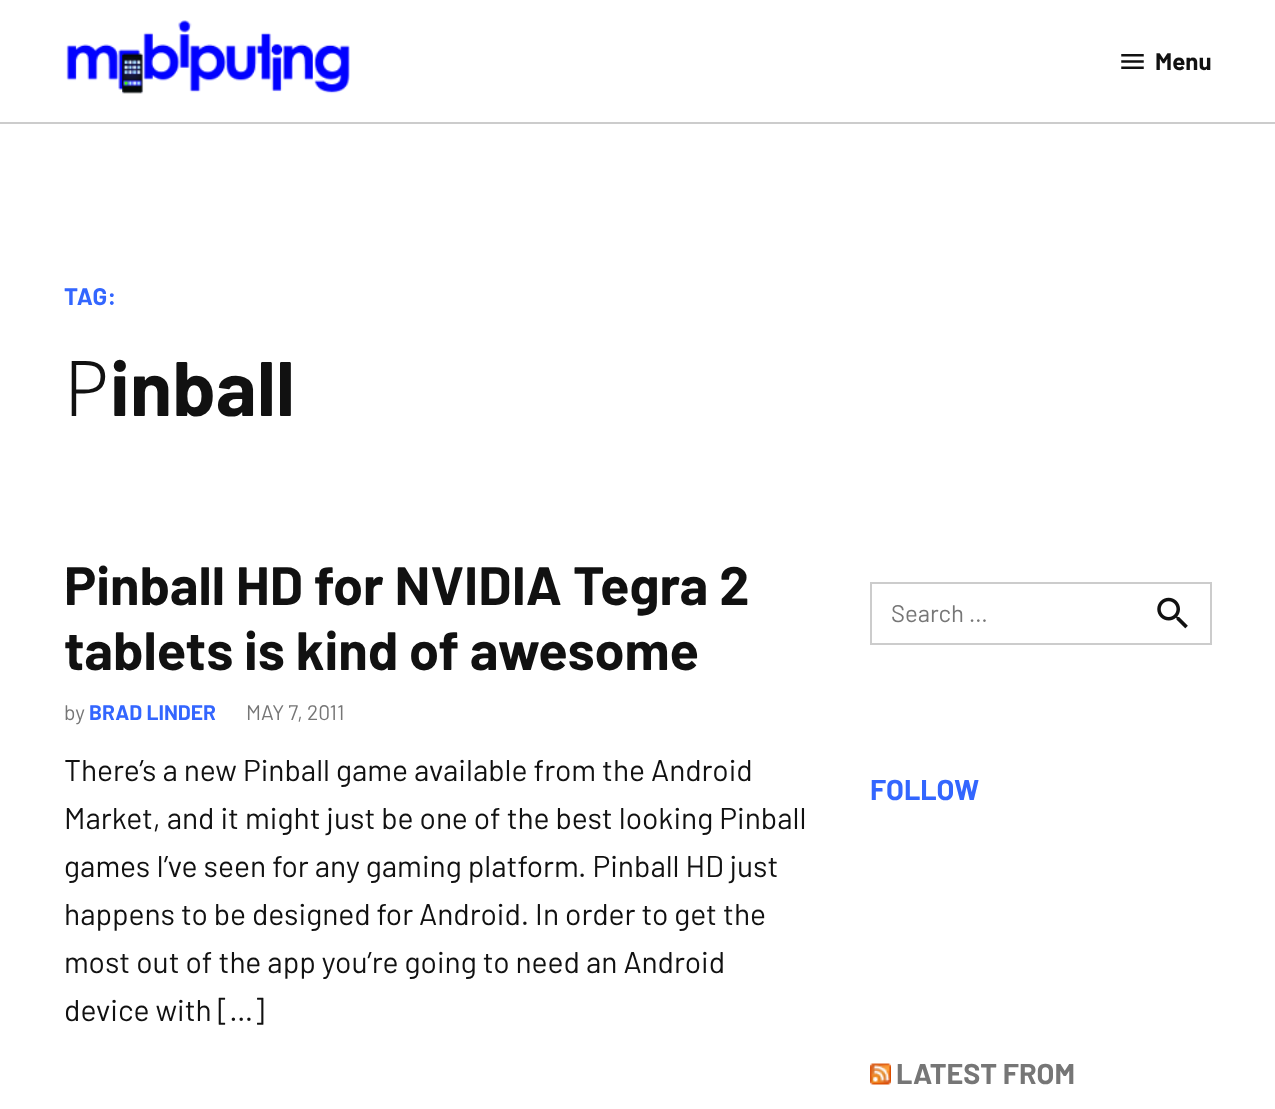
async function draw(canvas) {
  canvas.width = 1275;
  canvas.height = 1109;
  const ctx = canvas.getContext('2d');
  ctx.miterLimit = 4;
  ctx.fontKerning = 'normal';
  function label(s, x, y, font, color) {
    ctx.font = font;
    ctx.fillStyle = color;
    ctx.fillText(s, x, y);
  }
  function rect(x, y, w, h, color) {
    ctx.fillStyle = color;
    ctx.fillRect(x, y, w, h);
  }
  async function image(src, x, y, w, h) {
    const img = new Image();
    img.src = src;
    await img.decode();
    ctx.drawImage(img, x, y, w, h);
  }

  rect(0, 0, 1275, 1109, '#fff');
  rect(0, 122, 1275, 2, '#ccc');
  await image('assets/img1.png', 66, 20, 284, 74);
  await image('assets/img2.png', 1121, 54, 23, 15);
  label('Menu', 1155, 70, 'bold 24px Barlow', '#111');
  ctx.letterSpacing = '0.25px';
  label('TAG:', 64, 305, 'bold 24px Barlow', '#36f');
  label('P', 64, 416, '300 77px Noto Sans', '#111');
  label('inball', 110, 416, 'bold 77px Barlow', '#111');
  ctx.letterSpacing = '0px';
  label('Pinball HD for NVIDIA Tegra 2', 64, 605, 'bold 54px Barlow', '#111');
  label('tablets is kind of awesome', 64, 670, 'bold 54px Barlow', '#111');
  label('by', 64, 720, '21px Barlow', '#767676');
  label('BRAD LINDER', 89, 720, 'bold 21px Barlow', '#36f');
  label('MAY 7, 2011', 246, 720, '21px Barlow', '#767676');
  label('There’s a new Pinball game available from the Android', 64, 781, '30px Barlow', '#111');
  label('Market, and it might just be one of the best looking Pinball', 64, 829, '30px Barlow', '#111');
  label('games I’ve seen for any gaming platform. Pinball HD just', 64, 877, '30px Barlow', '#111');
  label('happens to be designed for Android. In order to get the', 64, 925, '30px Barlow', '#111');
  label('most out of the app you’re going to need an Android', 64, 973, '30px Barlow', '#111');
  label('device with […]', 64, 1021, '30px Barlow', '#111');
  ctx.strokeStyle = '#ccc';
  ctx.lineWidth = 2;
  ctx.strokeRect(871, 583, 340, 61);
  label('Search …', 891, 622, '24px Barlow', '#767676');
  await image('assets/img3.png', 1157, 597, 31, 32);
  label('FOLLOW', 870, 800, 'bold 28.75px Barlow', '#36f');
  await image('assets/img4.png', 870, 1063, 21, 22);
  label('LATEST FROM', 896, 1084, 'bold 28.75px Barlow', '#767676');
}

draw(document.querySelector('canvas'));
